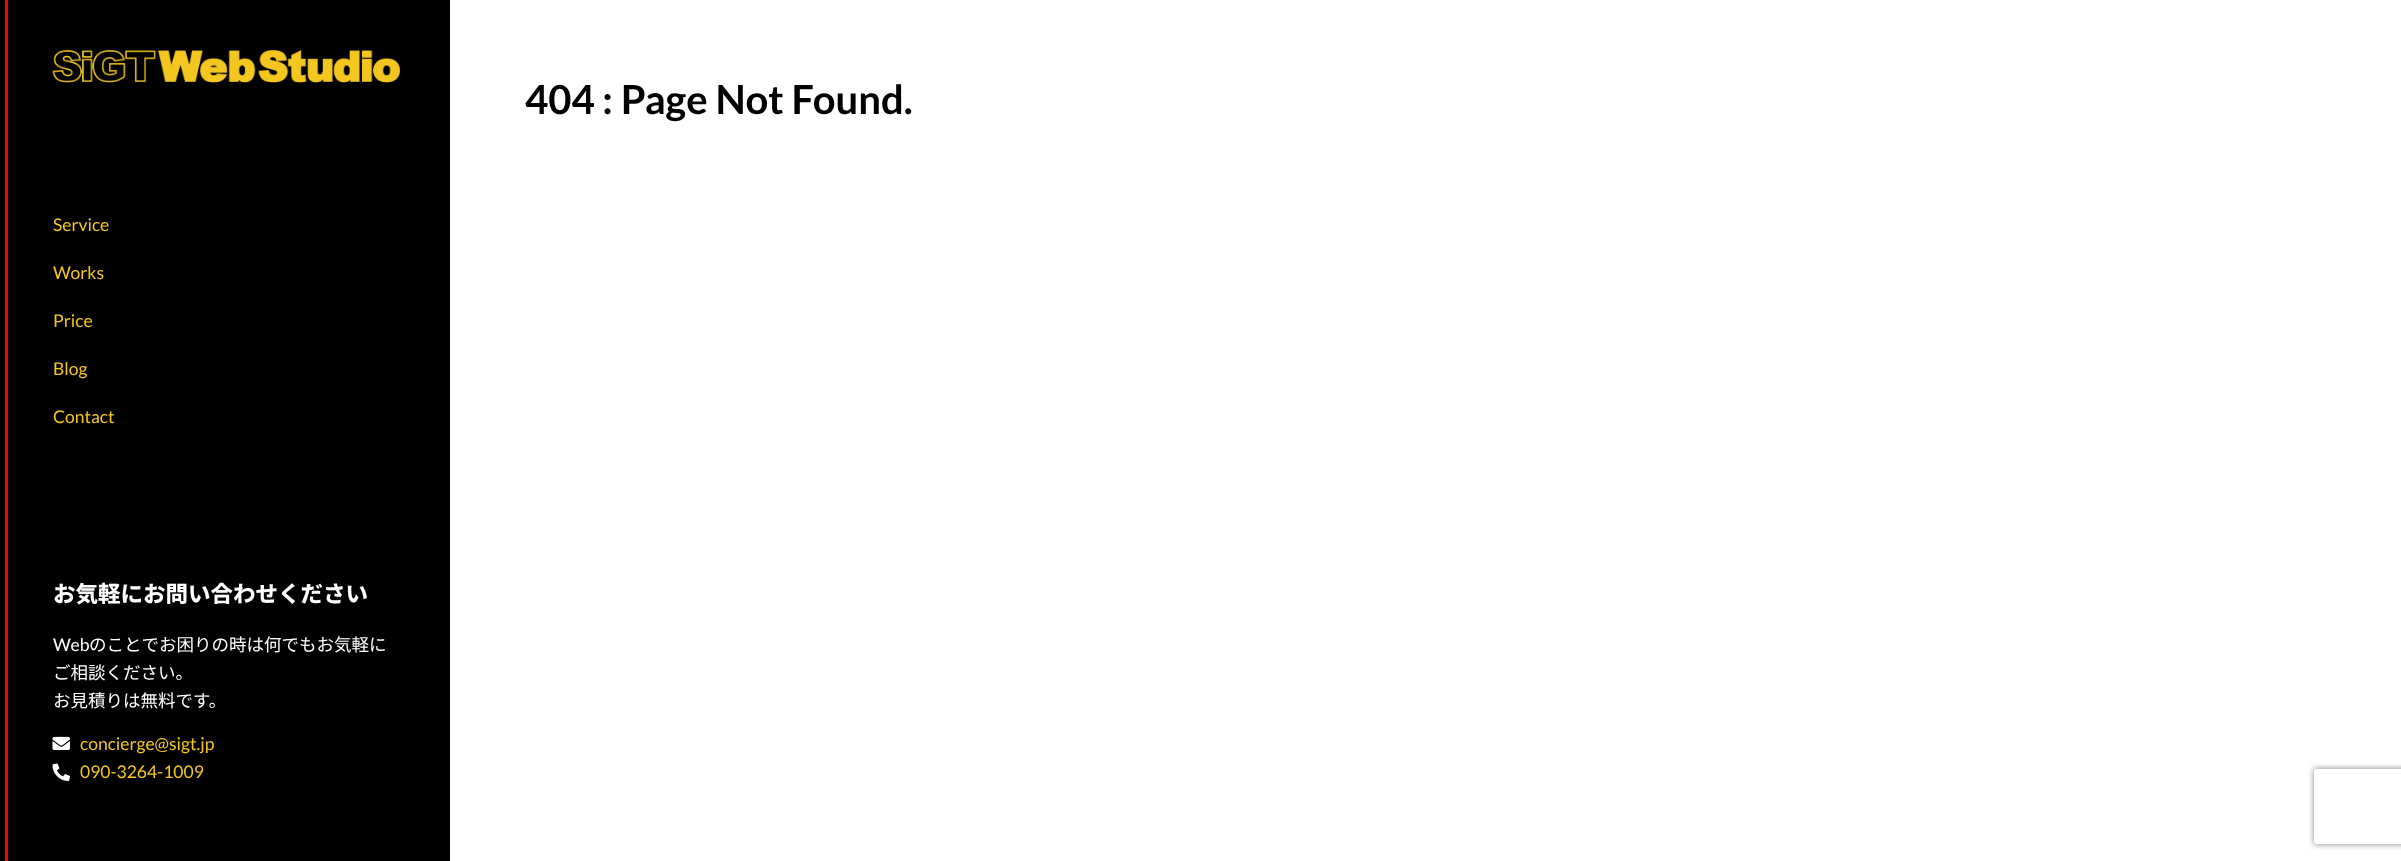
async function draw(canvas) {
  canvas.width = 2401;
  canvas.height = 861;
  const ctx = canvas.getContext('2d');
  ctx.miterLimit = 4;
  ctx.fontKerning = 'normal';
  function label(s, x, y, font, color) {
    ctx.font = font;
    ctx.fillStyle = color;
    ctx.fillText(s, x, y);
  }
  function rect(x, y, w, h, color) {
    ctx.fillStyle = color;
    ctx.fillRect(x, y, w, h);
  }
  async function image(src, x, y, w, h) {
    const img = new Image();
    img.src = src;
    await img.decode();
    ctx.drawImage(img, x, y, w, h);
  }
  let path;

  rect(0, 0, 2401, 861, '#fff');
  label('404 : Page Not Found.', 525, 114, 'bold 40px Lato', '#000');
  rect(0, 0, 450, 861, '#000');
  rect(5, 0, 3, 861, '#f00');
  await image('assets/img1.png', 52, 50, 348, 33);
  label('Service', 53, 231, '17.5px Lato', '#f5c71d');
  label('Works', 53, 279, '17.5px Lato', '#f5c71d');
  label('Price', 53, 327, '17.5px Lato', '#f5c71d');
  label('Blog', 53, 375, '17.5px Lato', '#f5c71d');
  label('Contact', 53, 423, '17.5px Lato', '#f5c71d');
  label('お気軽にお問い合わせください', 53, 602, '800 22.5px Noto Sans JP', '#fff');
  label('Web', 53, 651, '17.5px Lato', '#fff');
  label('のことでお困りの時は何でもお気軽に', 89, 651, '17.5px Noto Sans JP', '#fff');
  label('ご相談ください。', 53, 679, '17.5px Noto Sans JP', '#fff');
  label('お見積りは無料です。', 53, 707, '17.5px Noto Sans JP', '#fff');
  await image('assets/img2.png', 52, 736, 18, 14);
  label('concierge@sigt.jp', 80, 750, '17.5px Lato', '#f5c71d');
  await image('assets/img3.png', 52, 763, 18, 18);
  label('090-3264-1009', 80, 778, '17.5px Lato', '#f5c71d');
  ctx.save();
  path = new Path2D('M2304 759H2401V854H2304ZM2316.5 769H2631.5C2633 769 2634 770 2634 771.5V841.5C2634 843 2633 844 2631.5 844H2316.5C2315 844 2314 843 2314 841.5V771.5C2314 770 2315 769 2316.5 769Z');
  ctx.clip(path, 'evenodd');
  ctx.fillStyle = '#808080';
  ctx.filter = 'blur(3px)';
  ctx.beginPath();
  ctx.roundRect(2314, 769, 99, 75, 2.5);
  ctx.fill();
  ctx.filter = 'none';
  ctx.restore();
}

draw(document.querySelector('canvas'));
